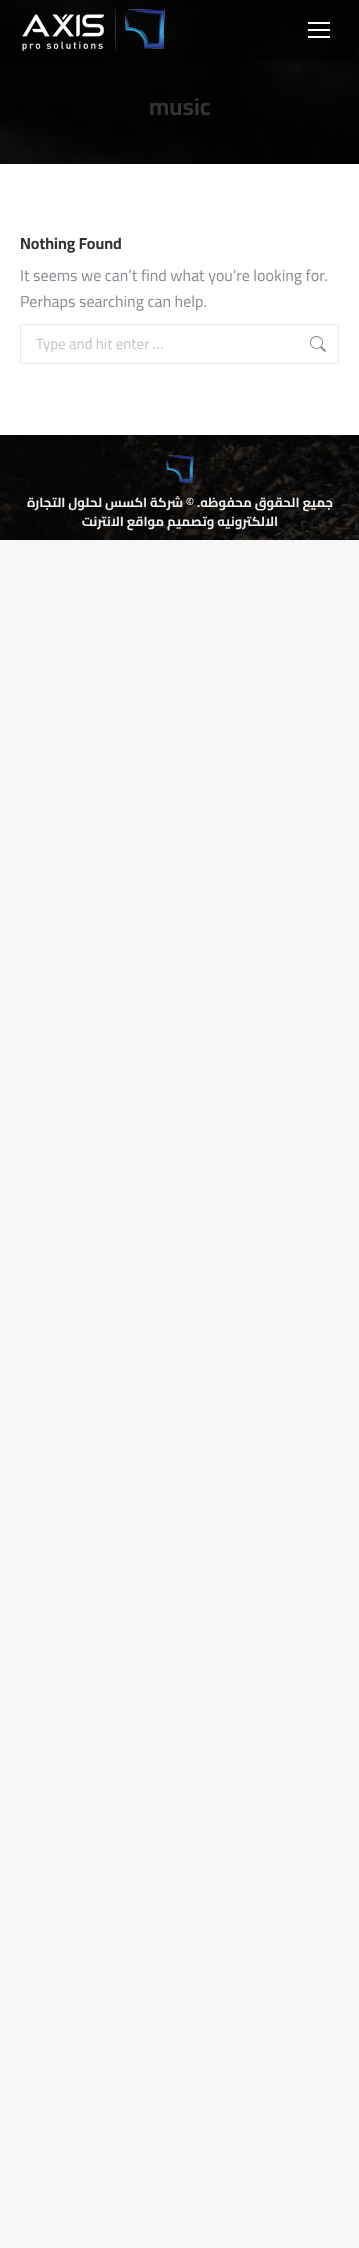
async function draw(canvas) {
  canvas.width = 359;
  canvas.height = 2248;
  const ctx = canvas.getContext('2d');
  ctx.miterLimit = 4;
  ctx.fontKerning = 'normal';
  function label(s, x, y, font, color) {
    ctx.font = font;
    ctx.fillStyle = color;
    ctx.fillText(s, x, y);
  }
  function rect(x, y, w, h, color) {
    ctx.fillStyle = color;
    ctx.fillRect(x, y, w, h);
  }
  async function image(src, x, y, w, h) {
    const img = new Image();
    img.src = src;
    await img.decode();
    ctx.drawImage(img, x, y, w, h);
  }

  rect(0, 0, 359, 2248, '#f7f7f7');
  rect(0, 164, 359, 271, '#fff');
  await image('assets/img2.png', 0, 0, 359, 164);
  rect(0, 0, 356, 60, '#00000080');
  await image('assets/img1.png', 22, 8, 143, 44);
  rect(308, 22, 22, 2, '#fff');
  rect(308, 29, 22, 2, '#fff');
  rect(308, 36, 22, 2, '#fff');
  label('music', 149, 115, 'bold 24px Cairo', '#333');
  label('Nothing Found', 20, 249, 'bold 16px Cairo', '#333');
  label('It seems we can’t find what you’re looking for.', 20, 281, '16px Cairo', '#8b8d94');
  label('Perhaps searching can help.', 20, 307, '16px Cairo', '#8b8d94');
  ctx.beginPath();
  ctx.roundRect(20.5, 324.5, 318, 39, 1.5);
  ctx.strokeStyle = '#e7e7e7';
  ctx.stroke();
  label('Type and hit enter …', 36, 349, '15px Cairo', '#c4c5c9');
  await image('assets/img3.png', 310, 336, 16, 16);
  await image('assets/img4.png', 0, 435, 359, 105);
  await image('assets/img5.png', 166, 455, 28, 28);
  ctx.direction = 'rtl';
  label('شركة اكسس لحلول التجارة', 183, 507, 'bold 13px Cairo', '#eee');
  label('جميع الحقوق محفوظه. ©', 333, 507, 'bold 13px Cairo', '#eee');
  label('الالكترونيه وتصميم مواقع الانترنت', 278, 526, 'bold 13px Cairo', '#eee');
}

draw(document.querySelector('canvas'));
